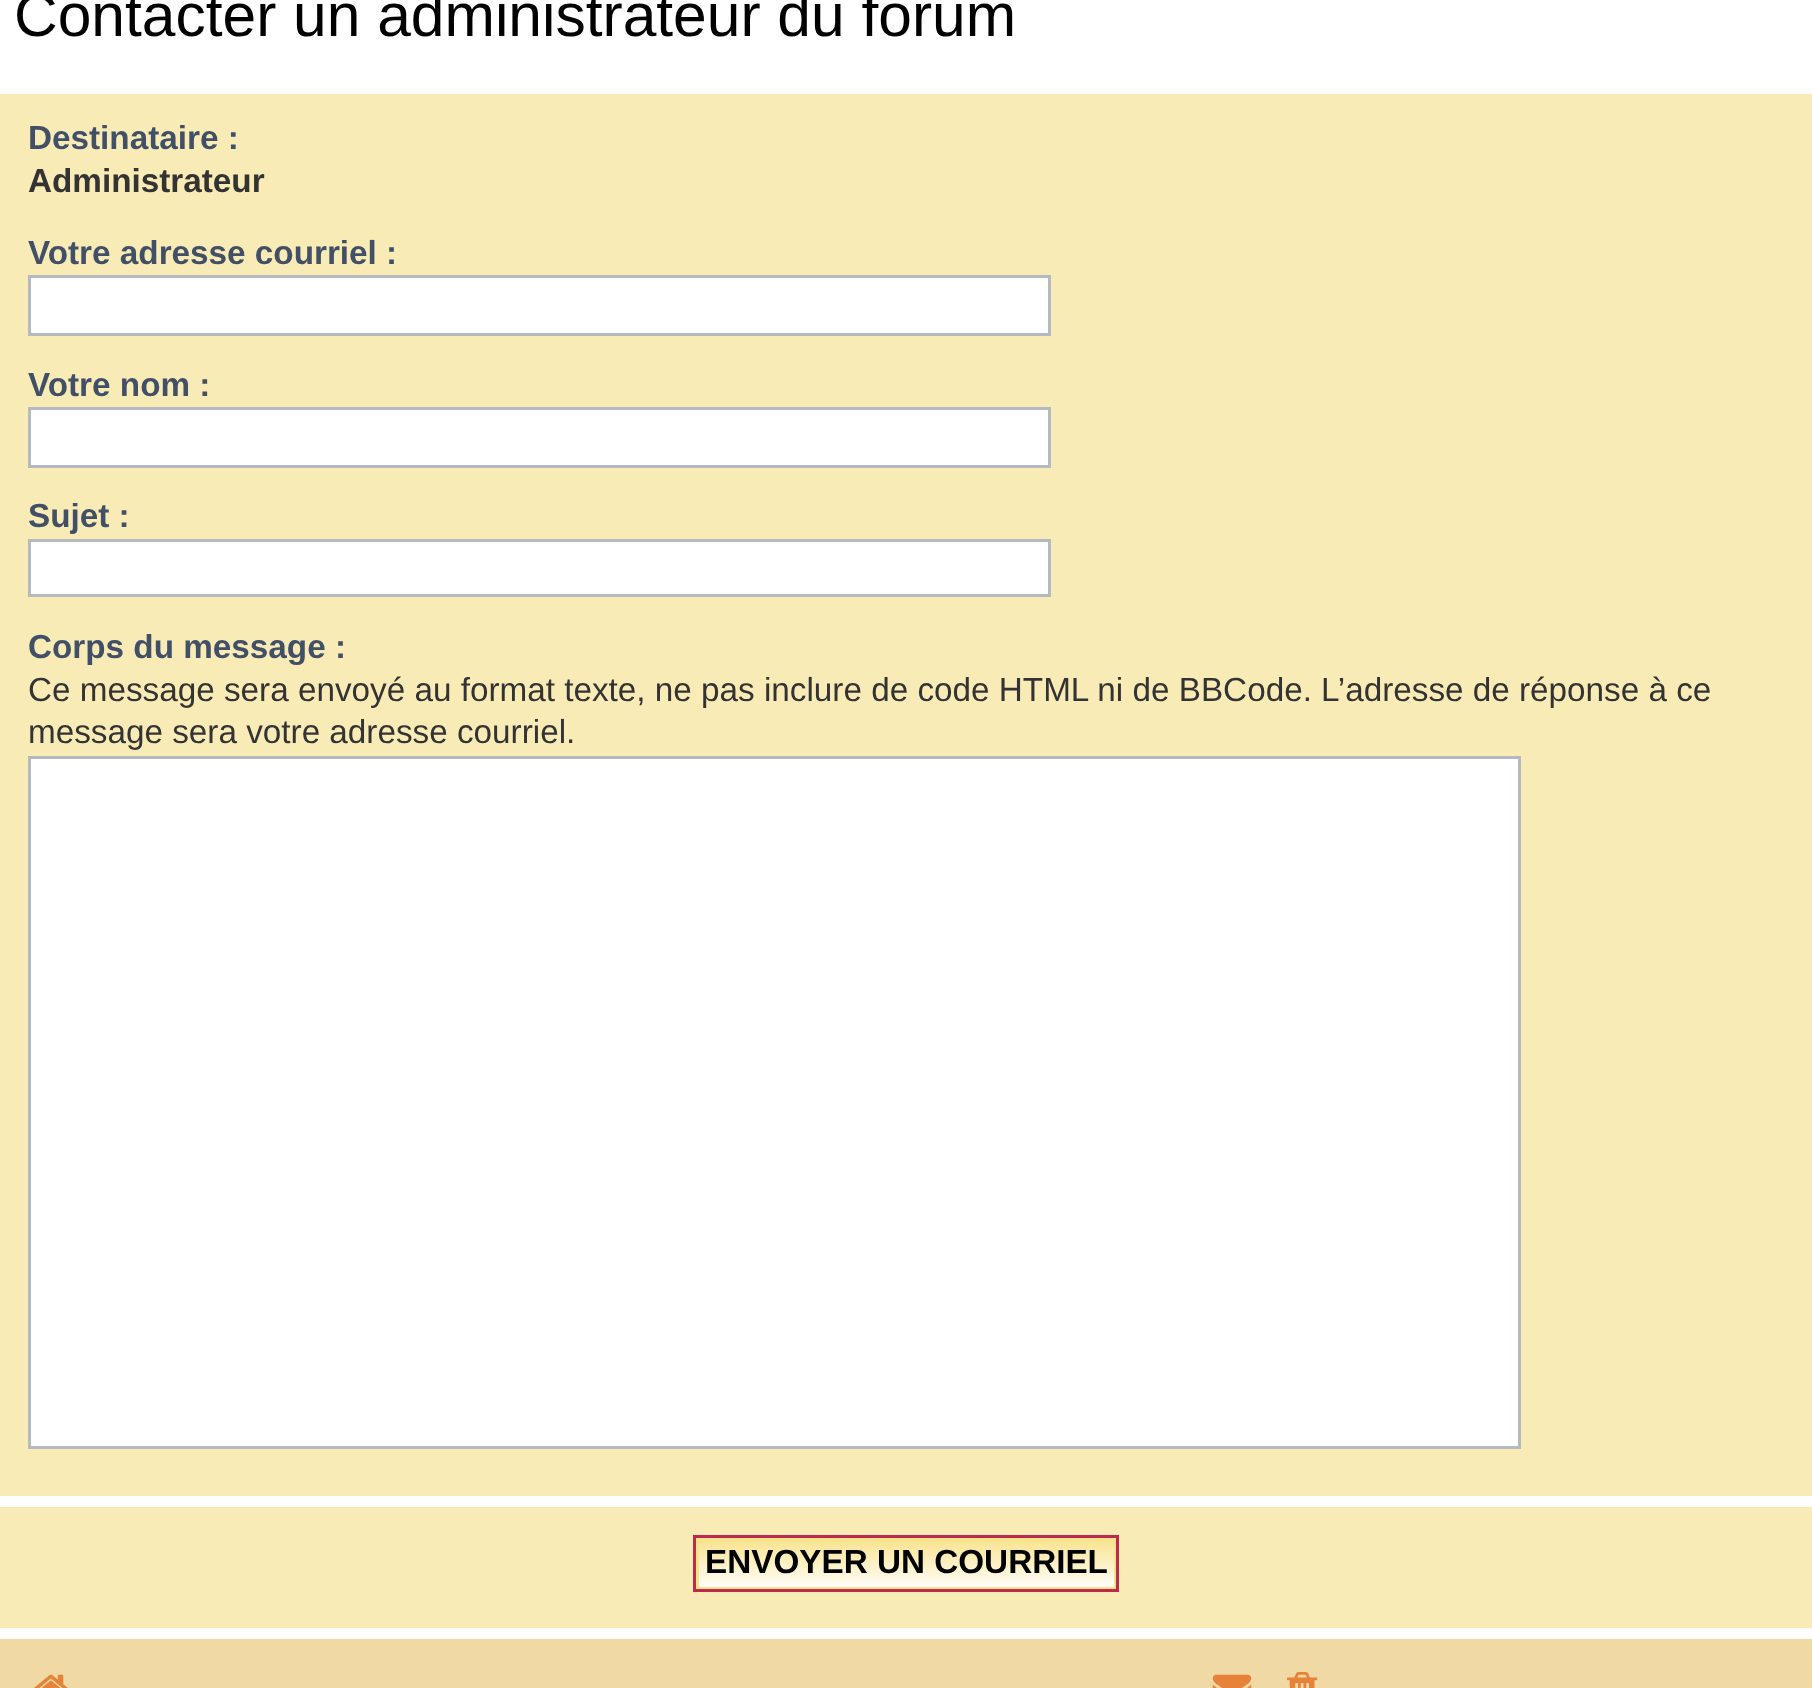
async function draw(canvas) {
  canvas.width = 1812;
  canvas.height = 1688;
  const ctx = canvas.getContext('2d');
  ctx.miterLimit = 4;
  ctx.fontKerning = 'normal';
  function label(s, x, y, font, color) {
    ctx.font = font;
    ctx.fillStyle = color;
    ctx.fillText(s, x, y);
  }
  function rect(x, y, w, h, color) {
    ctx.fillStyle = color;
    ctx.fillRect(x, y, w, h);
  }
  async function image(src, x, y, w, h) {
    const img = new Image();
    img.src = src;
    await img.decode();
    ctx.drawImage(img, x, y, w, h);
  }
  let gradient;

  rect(0, 0, 1812, 1688, '#fff');
  label('Contacter un administrateur du forum', 14, 36, '60.5px Liberation Sans', '#000');
  rect(0, 94, 1812, 1402, '#f9ebb6');
  label('Destinataire :', 28, 149, 'bold 33.27px Liberation Sans', '#425067');
  label('Administrateur', 28, 192, 'bold 33.27px Liberation Sans', '#333');
  label('Votre adresse courriel :', 28, 264, 'bold 33.27px Liberation Sans', '#425067');
  ctx.fillStyle = '#fff';
  ctx.beginPath();
  ctx.rect(29.5, 276.5, 1020, 58);
  ctx.fill();
  ctx.strokeStyle = '#b4bac0';
  ctx.lineWidth = 3;
  ctx.stroke();
  label('Votre nom :', 28, 396, 'bold 33.27px Liberation Sans', '#425067');
  ctx.fillStyle = '#fff';
  ctx.beginPath();
  ctx.rect(29.5, 408.5, 1020, 58);
  ctx.fill();
  ctx.stroke();
  label('Sujet :', 28, 527, 'bold 33.27px Liberation Sans', '#425067');
  ctx.fillStyle = '#fff';
  ctx.beginPath();
  ctx.rect(29.5, 540.5, 1020, 55);
  ctx.fill();
  ctx.stroke();
  label('Corps du message :', 28, 658, 'bold 33.27px Liberation Sans', '#425067');
  label('Ce message sera envoyé au format texte, ne pas inclure de code HTML ni de BBCode. L’adresse de réponse à ce', 28, 701, '33.27px Liberation Sans', '#333');
  label('message sera votre adresse courriel.', 28, 743, '33.27px Liberation Sans', '#333');
  ctx.fillStyle = '#fff';
  ctx.beginPath();
  ctx.rect(29.5, 757.5, 1490, 690);
  ctx.fill();
  ctx.stroke();
  rect(0, 1507, 1812, 121, '#f9ebb6');
  gradient = ctx.createLinearGradient(906, 1537, 906, 1590);
  gradient.addColorStop(0, '#f9e289');
  gradient.addColorStop(1, '#fff');
  ctx.fillStyle = gradient;
  ctx.fillRect(699, 1540, 415, 47);
  ctx.strokeStyle = '#f9e289';
  ctx.strokeRect(697.5, 1538.5, 418, 50);
  ctx.strokeStyle = '#bc2a4d';
  ctx.strokeRect(694.5, 1536.5, 423, 54);
  label('ENVOYER UN COURRIEL', 705, 1573, 'bold 33.27px Liberation Sans', '#000');
  rect(0, 1639, 1812, 49, '#f0d9a5');
  await image('assets/img1.png', 34, 1674, 34, 14);
  await image('assets/img2.png', 1212, 1674, 40, 14);
  await image('assets/img3.png', 1287, 1672, 31, 16);
}

draw(document.querySelector('canvas'));
